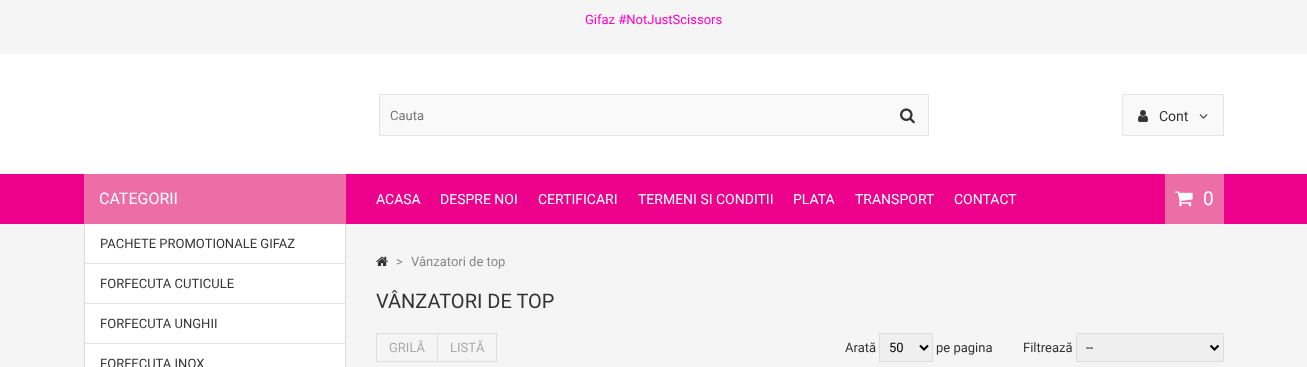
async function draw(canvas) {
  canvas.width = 1307;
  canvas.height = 367;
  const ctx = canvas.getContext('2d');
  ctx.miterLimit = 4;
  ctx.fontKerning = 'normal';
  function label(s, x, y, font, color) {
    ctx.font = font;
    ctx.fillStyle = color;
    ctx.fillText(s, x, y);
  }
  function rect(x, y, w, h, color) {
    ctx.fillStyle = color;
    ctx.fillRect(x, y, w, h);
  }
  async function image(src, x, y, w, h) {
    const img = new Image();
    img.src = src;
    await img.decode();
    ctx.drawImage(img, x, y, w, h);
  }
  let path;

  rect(0, 0, 1307, 367, '#fff');
  rect(0, 0, 1307, 54, '#f5f5f5');
  label('Gifaz #NotJustScissors', 585, 24, '13px Roboto', '#ff00c4');
  rect(0, 174, 1307, 50, '#ec008c');
  ctx.fillStyle = '#f9f9f9';
  ctx.beginPath();
  ctx.rect(379.5, 94.5, 549, 41);
  ctx.fill();
  ctx.strokeStyle = '#e5e5e5';
  ctx.stroke();
  label('Cauta', 390, 120, '13px Roboto', '#757575');
  await image('assets/img1.png', 900, 108, 15, 16);
  rect(84, 174, 262, 50, '#ed6da6');
  label('CATEGORII', 99, 204, '16px Roboto', '#fff');
  label('ACASA', 376, 204, '14px Roboto', '#fff');
  label('DESPRE NOI', 440, 204, '14px Roboto', '#fff');
  label('CERTIFICARI', 538, 204, '14px Roboto', '#fff');
  label('TERMENI SI CONDITII', 638, 204, '14px Roboto', '#fff');
  label('PLATA', 793, 204, '14px Roboto', '#fff');
  label('TRANSPORT', 855, 204, '14px Roboto', '#fff');
  label('CONTACT', 954, 204, '14px Roboto', '#fff');
  rect(1165, 174, 59, 50, '#ed6da6');
  await image('assets/img2.png', 1175, 191, 18, 16);
  label('0', 1203, 205, '19px Roboto', '#fff');
  ctx.fillStyle = '#f9f9f9';
  ctx.beginPath();
  ctx.rect(1122.5, 94.5, 101, 41);
  ctx.fill();
  ctx.stroke();
  await image('assets/img3.png', 1138, 110, 10, 12);
  label('Cont', 1159, 121, '14px Roboto', '#333');
  await image('assets/img4.png', 1199, 114, 9, 5);
  rect(0, 224, 1307, 143, '#f5f5f5');
  rect(85, 224, 260, 143, '#fff');
  rect(345, 224, 1, 143, '#ddd');
  rect(84, 224, 1, 143, '#ddd');
  rect(85, 263, 260, 1, '#e5e5e5');
  label('PACHETE PROMOTIONALE GIFAZ', 100, 248, '13px Roboto', '#333');
  rect(85, 303, 260, 1, '#e5e5e5');
  label('FORFECUTA CUTICULE', 100, 288, '13px Roboto', '#333');
  rect(85, 343, 260, 1, '#e5e5e5');
  label('FORFECUTA UNGHII', 100, 328, '13px Roboto', '#333');
  label('FORFECUTA INOX', 100, 368, '13px Roboto', '#333');
  await image('assets/img5.png', 376, 256, 12, 10);
  label('>', 396, 266, '13px Roboto', '#888');
  label('Vânzatori de top', 411, 266, '13px Roboto', '#888');
  label('VÂNZATORI DE TOP', 376, 308, '20px Roboto', '#333');
  ctx.strokeStyle = '#ddd';
  ctx.strokeRect(376.5, 333.5, 120, 28);
  rect(437, 334, 1, 27, '#ddd');
  label('GRILĂ', 389, 352, '13px Roboto', '#aaa');
  label('LISTĂ', 450, 352, '13px Roboto', '#aaa');
  label('Arată', 845, 352, '13px Roboto', '#333');
  ctx.fillStyle = '#efefef';
  ctx.beginPath();
  ctx.rect(879.5, 333.5, 53, 28);
  ctx.fill();
  ctx.stroke();
  path = new Path2D('M920 345.5L924 349.5L928 345.5');
  ctx.strokeStyle = '#000';
  ctx.lineWidth = 2;
  ctx.stroke(path);
  label('50', 889, 352, '13px Roboto', '#000');
  label('pe pagina', 936, 352, '13px Roboto', '#333');
  label('Filtrează', 1023, 352, '13px Roboto', '#333');
  ctx.fillStyle = '#efefef';
  ctx.beginPath();
  ctx.rect(1076.5, 333.5, 147, 28);
  ctx.fill();
  ctx.strokeStyle = '#ddd';
  ctx.lineWidth = 1;
  ctx.stroke();
  path = new Path2D('M1210.5 345.5L1214.5 349.5L1218.5 345.5');
  ctx.strokeStyle = '#000';
  ctx.lineWidth = 2;
  ctx.stroke(path);
  label('--', 1086, 352, '13px Roboto', '#000');
}

draw(document.querySelector('canvas'));
